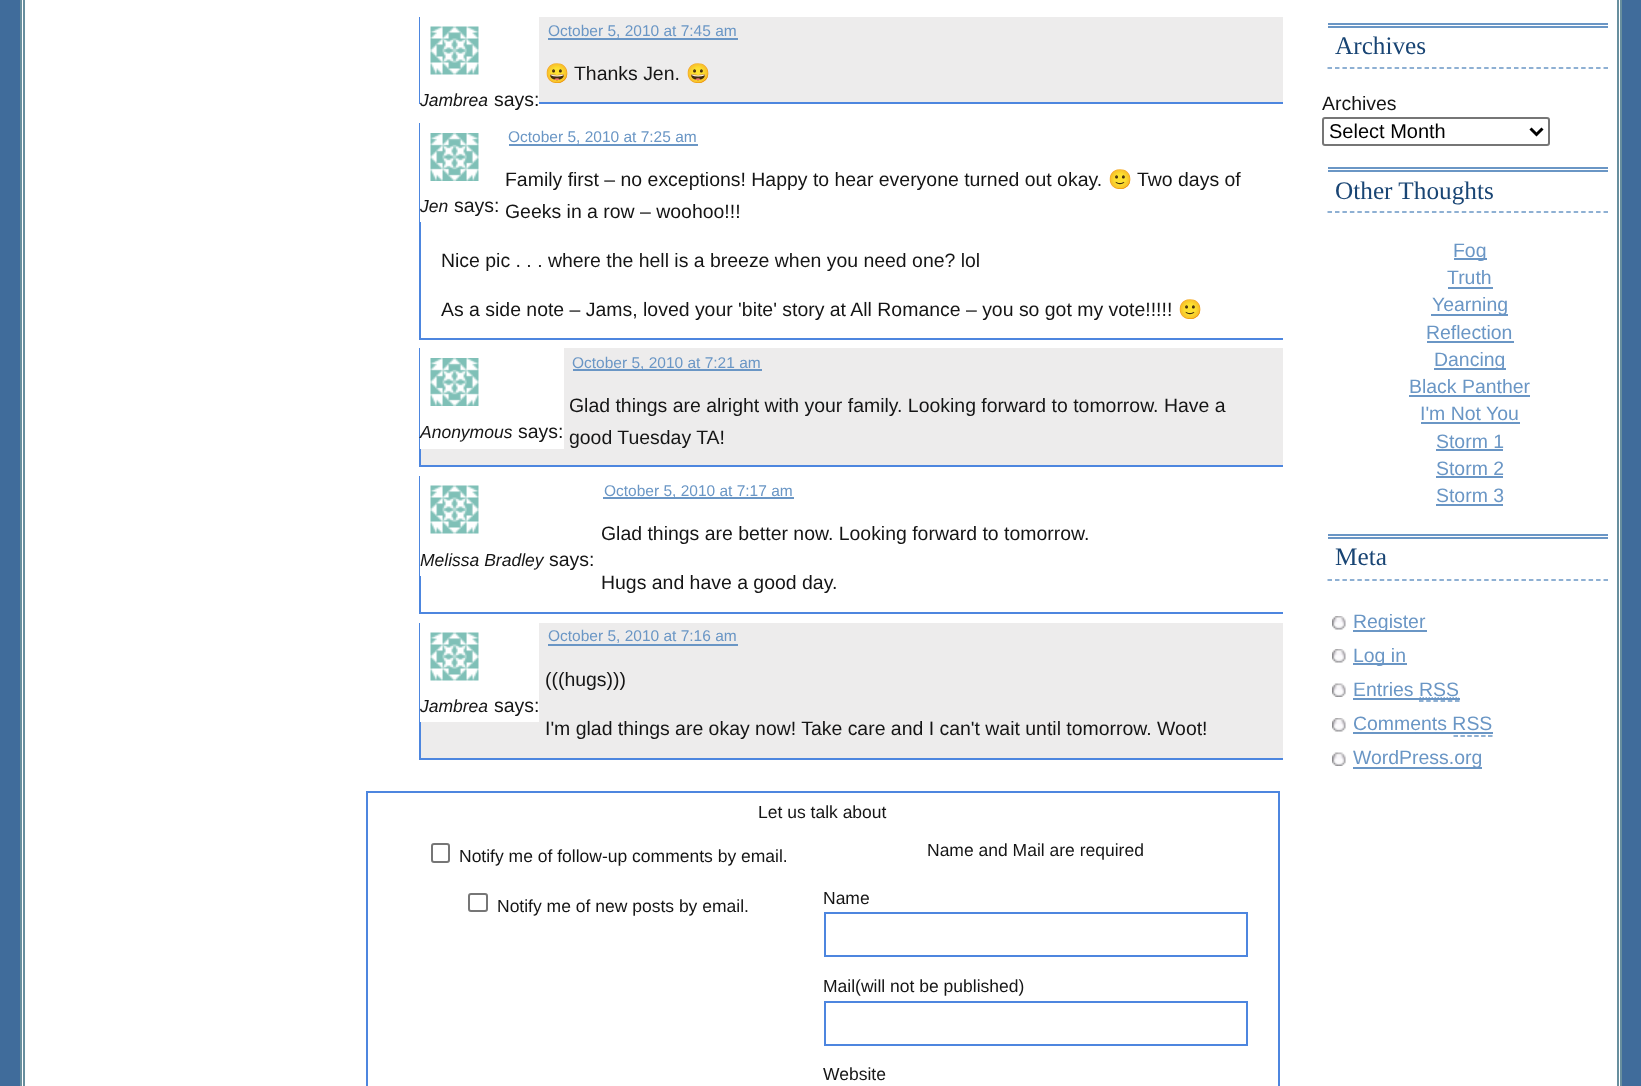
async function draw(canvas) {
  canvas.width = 1641;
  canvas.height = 1086;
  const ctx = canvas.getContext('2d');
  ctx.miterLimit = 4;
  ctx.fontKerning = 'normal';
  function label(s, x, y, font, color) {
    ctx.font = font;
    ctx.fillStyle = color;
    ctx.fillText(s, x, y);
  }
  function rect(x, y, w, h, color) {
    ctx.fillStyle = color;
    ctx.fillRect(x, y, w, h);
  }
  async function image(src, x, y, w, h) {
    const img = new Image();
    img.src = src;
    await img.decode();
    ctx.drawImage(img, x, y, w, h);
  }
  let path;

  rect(0, 0, 1641, 1086, '#406c9b');
  ctx.fillStyle = '#fff';
  ctx.beginPath();
  ctx.rect(21, -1, 1600, 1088);
  ctx.fill();
  ctx.strokeStyle = '#688f9e';
  ctx.lineWidth = 2;
  ctx.stroke();
  ctx.strokeRect(24, -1, 1594, 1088);
  rect(539, 17, 744, 85, '#edecec');
  rect(539, 102, 744, 2, '#4d86df');
  rect(419, 17, 1, 87, '#4d86df');
  label('October 5, 2010 at 7:45 am', 548, 36, '15.5px Liberation Sans', '#6a96c5');
  rect(548, 38, 190, 2, '#6a96c5');
  label('😀', 545, 80, '19.45px Noto Color Emoji', '#151515');
  label('Thanks Jen.', 574, 80, '19.45px Liberation Sans', '#151515');
  label('😀', 686, 80, '19.45px Noto Color Emoji', '#151515');
  await image('assets/img1.png', 430, 26, 49, 49);
  label('Jambrea', 420, 106, 'italic 17.5px Liberation Sans', '#151515');
  label('says:', 494, 106, '19.45px Liberation Sans', '#151515');
  rect(419, 338, 864, 2, '#4d86df');
  rect(419, 123, 2, 216, '#4d86df');
  label('October 5, 2010 at 7:25 am', 508, 142, '15.5px Liberation Sans', '#6a96c5');
  rect(509, 144, 189, 2, '#6a96c5');
  rect(420, 123, 1, 99, '#fff');
  await image('assets/img2.png', 430, 133, 49, 48);
  label('Jen', 420, 212, 'italic 17.5px Liberation Sans', '#151515');
  label('says:', 454, 212, '19.45px Liberation Sans', '#151515');
  label('Family first – no exceptions! Happy to hear everyone turned out okay.', 505, 186, '19.45px Liberation Sans', '#151515');
  label('🙂', 1108, 186, '19.45px Noto Color Emoji', '#151515');
  label('Two days of', 1137, 186, '19.45px Liberation Sans', '#151515');
  label('Geeks in a row – woohoo!!!', 505, 218, '19.45px Liberation Sans', '#151515');
  label('Nice pic . . . where the hell is a breeze when you need one? lol', 441, 267, '19.45px Liberation Sans', '#151515');
  label('As a side note – Jams, loved your \'bite\' story at All Romance – you so got my vote!!!!!', 441, 316, '19.45px Liberation Sans', '#151515');
  label('🙂', 1178, 316, '19.45px Noto Color Emoji', '#151515');
  rect(421, 348, 862, 117, '#edecec');
  rect(419, 465, 864, 2, '#4d86df');
  rect(419, 348, 2, 119, '#4d86df');
  rect(573, 369, 189, 2, '#6a96c5');
  label('October 5, 2010 at 7:21 am', 572, 368, '15.5px Liberation Sans', '#6a96c5');
  rect(420, 348, 144, 101, '#fff');
  await image('assets/img2.png', 430, 358, 49, 48);
  label('Anonymous', 420, 438, 'italic 17.5px Liberation Sans', '#151515');
  label('says:', 518, 438, '19.45px Liberation Sans', '#151515');
  label('Glad things are alright with your family. Looking forward to tomorrow. Have a', 569, 412, '19.45px Liberation Sans', '#151515');
  label('good Tuesday TA!', 569, 444, '19.45px Liberation Sans', '#151515');
  rect(419, 612, 864, 2, '#4d86df');
  rect(419, 476, 2, 138, '#4d86df');
  rect(603, 497, 191, 2, '#6a96c5');
  label('October 5, 2010 at 7:17 am', 604, 496, '15.5px Liberation Sans', '#6a96c5');
  label('Glad things are better now. Looking forward to tomorrow.', 601, 540, '19.45px Liberation Sans', '#151515');
  rect(420, 476, 1, 100, '#fff');
  await image('assets/img1.png', 430, 485, 49, 49);
  label('Melissa Bradley', 420, 566, 'italic 17.5px Liberation Sans', '#151515');
  label('says:', 549, 566, '19.45px Liberation Sans', '#151515');
  label('Hugs and have a good day.', 601, 589, '19.45px Liberation Sans', '#151515');
  rect(421, 623, 862, 135, '#edecec');
  rect(419, 758, 864, 2, '#4d86df');
  rect(419, 623, 2, 136, '#4d86df');
  label('October 5, 2010 at 7:16 am', 548, 641, '15.5px Liberation Sans', '#6a96c5');
  rect(548, 644, 190, 2, '#6a96c5');
  label('(((hugs)))', 545, 686, '19.45px Liberation Sans', '#151515');
  rect(420, 623, 119, 99, '#fff');
  await image('assets/img1.png', 430, 632, 49, 49);
  label('Jambrea', 420, 712, 'italic 17.5px Liberation Sans', '#151515');
  label('says:', 494, 712, '19.45px Liberation Sans', '#151515');
  label('I\'m glad things are okay now! Take care and I can\'t wait until tomorrow. Woot!', 545, 735, '19.45px Liberation Sans', '#151515');
  ctx.strokeStyle = '#4d86df';
  ctx.strokeRect(367, 792, 912, 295);
  label('Let us talk about', 758, 818, '17.5px Liberation Sans', '#151515');
  ctx.beginPath();
  ctx.roundRect(432, 844, 17, 18, 2);
  ctx.strokeStyle = '#767676';
  ctx.stroke();
  label('Notify me of follow-up comments by email.', 459, 862, '17.5px Liberation Sans', '#151515');
  label('Name and Mail are required', 927, 856, '17.5px Liberation Sans', '#151515');
  label('Name', 823, 904, '17.5px Liberation Sans', '#151515');
  ctx.strokeStyle = '#4d86df';
  ctx.strokeRect(825, 913, 422, 43);
  label('Mail(will not be published)', 823, 992, '17.5px Liberation Sans', '#151515');
  ctx.strokeRect(825, 1002, 422, 43);
  label('Website', 823, 1080, '17.5px Liberation Sans', '#151515');
  ctx.beginPath();
  ctx.roundRect(469, 894, 18, 17, 2);
  ctx.strokeStyle = '#767676';
  ctx.stroke();
  label('Notify me of new posts by email.', 497, 912, '17.5px Liberation Sans', '#151515');
  rect(1328, 23, 280, 2, '#6a96c5');
  rect(1328, 26, 280, 2, '#6a96c5');
  path = new Path2D('M1327.5 68H1608');
  ctx.strokeStyle = '#6a96c5';
  ctx.lineWidth = 1.5;
  ctx.setLineDash([4.5, 2.96]);
  ctx.stroke(path);
  label('Archives', 1335, 54, '25.25px Liberation Serif', '#194574');
  label('Archives', 1322, 110, '19.45px Liberation Sans', '#151515');
  ctx.beginPath();
  ctx.roundRect(1323, 118, 226, 27, 2);
  ctx.strokeStyle = '#767676';
  ctx.lineWidth = 2;
  ctx.setLineDash([]);
  ctx.stroke();
  path = new Path2D('M1530.5 128.5L1536.5 134.5L1542.5 128.5');
  ctx.strokeStyle = '#000';
  ctx.lineWidth = 3;
  ctx.stroke(path);
  label('Select Month', 1329, 138, '20px Liberation Sans', '#000');
  rect(1328, 167, 280, 2, '#6a96c5');
  rect(1328, 170, 280, 2, '#6a96c5');
  path = new Path2D('M1327.5 212H1608');
  ctx.strokeStyle = '#6a96c5';
  ctx.lineWidth = 1.5;
  ctx.setLineDash([4.5, 2.96]);
  ctx.stroke(path);
  label('Other Thoughts', 1335, 199, '25.25px Liberation Serif', '#194574');
  rect(1454, 258, 33, 2, '#6a96c5');
  label('Fog', 1453, 257, '19.45px Liberation Sans', '#6a96c5');
  label('Truth', 1447, 284, '19.45px Liberation Sans', '#6a96c5');
  rect(1448, 287, 45, 2, '#6a96c5');
  rect(1431, 314, 77, 2, '#6a96c5');
  label('Yearning', 1432, 311, '19.45px Liberation Sans', '#6a96c5');
  label('Reflection', 1426, 339, '19.45px Liberation Sans', '#6a96c5');
  rect(1427, 341, 87, 2, '#6a96c5');
  rect(1434, 368, 72, 2, '#6a96c5');
  label('Dancing', 1434, 366, '19.45px Liberation Sans', '#6a96c5');
  label('Black Panther', 1409, 393, '19.45px Liberation Sans', '#6a96c5');
  rect(1409, 395, 121, 2, '#6a96c5');
  label('I\'m Not You', 1420, 420, '19.45px Liberation Sans', '#6a96c5');
  rect(1421, 422, 99, 2, '#6a96c5');
  label('Storm 1', 1436, 448, '19.45px Liberation Sans', '#6a96c5');
  rect(1436, 449, 67, 2, '#6a96c5');
  label('Storm 2', 1436, 475, '19.45px Liberation Sans', '#6a96c5');
  rect(1436, 476, 67, 2, '#6a96c5');
  label('Storm 3', 1436, 502, '19.45px Liberation Sans', '#6a96c5');
  rect(1436, 504, 67, 2, '#6a96c5');
  rect(1328, 534, 280, 2, '#6a96c5');
  rect(1328, 537, 280, 2, '#6a96c5');
  path = new Path2D('M1327.5 580H1608');
  ctx.stroke(path);
  label('Meta', 1335, 565, '25.25px Liberation Serif', '#194574');
  await image('assets/img3.png', 1332, 616, 14, 14);
  rect(1353, 630, 74, 2, '#6a96c5');
  label('Register', 1353, 628, '19.45px Liberation Sans', '#6a96c5');
  await image('assets/img3.png', 1332, 649, 14, 14);
  rect(1353, 663, 54, 2, '#6a96c5');
  label('Log in', 1353, 662, '19.45px Liberation Sans', '#6a96c5');
  await image('assets/img4.png', 1332, 683, 14, 14);
  label('Entries RSS', 1353, 696, '19.45px Liberation Sans', '#6a96c5');
  rect(1353, 698, 66, 2, '#6a96c5');
  path = new Path2D('M1419 701H1459.5');
  ctx.setLineDash([4.5, 2.7]);
  ctx.stroke(path);
  path = new Path2D('M1419.5 698H1459');
  ctx.setLineDash([1.5, 1.5]);
  ctx.stroke(path);
  rect(1419, 698, 41, 2, '#6a96c5');
  await image('assets/img3.png', 1332, 718, 14, 14);
  label('Comments RSS', 1353, 730, '19.45px Liberation Sans', '#6a96c5');
  rect(1353, 732, 101, 2, '#6a96c5');
  path = new Path2D('M1453.5 736H1492.5');
  ctx.setLineDash([4.5, 2.4]);
  ctx.stroke(path);
  path = new Path2D('M1453 733H1492.5');
  ctx.setLineDash([1.5, 1.5]);
  ctx.stroke(path);
  rect(1454, 732, 39, 2, '#6a96c5');
  await image('assets/img4.png', 1332, 752, 14, 14);
  rect(1353, 767, 129, 2, '#6a96c5');
  label('WordPress.org', 1353, 764, '19.45px Liberation Sans', '#6a96c5');
}

draw(document.querySelector('canvas'));
